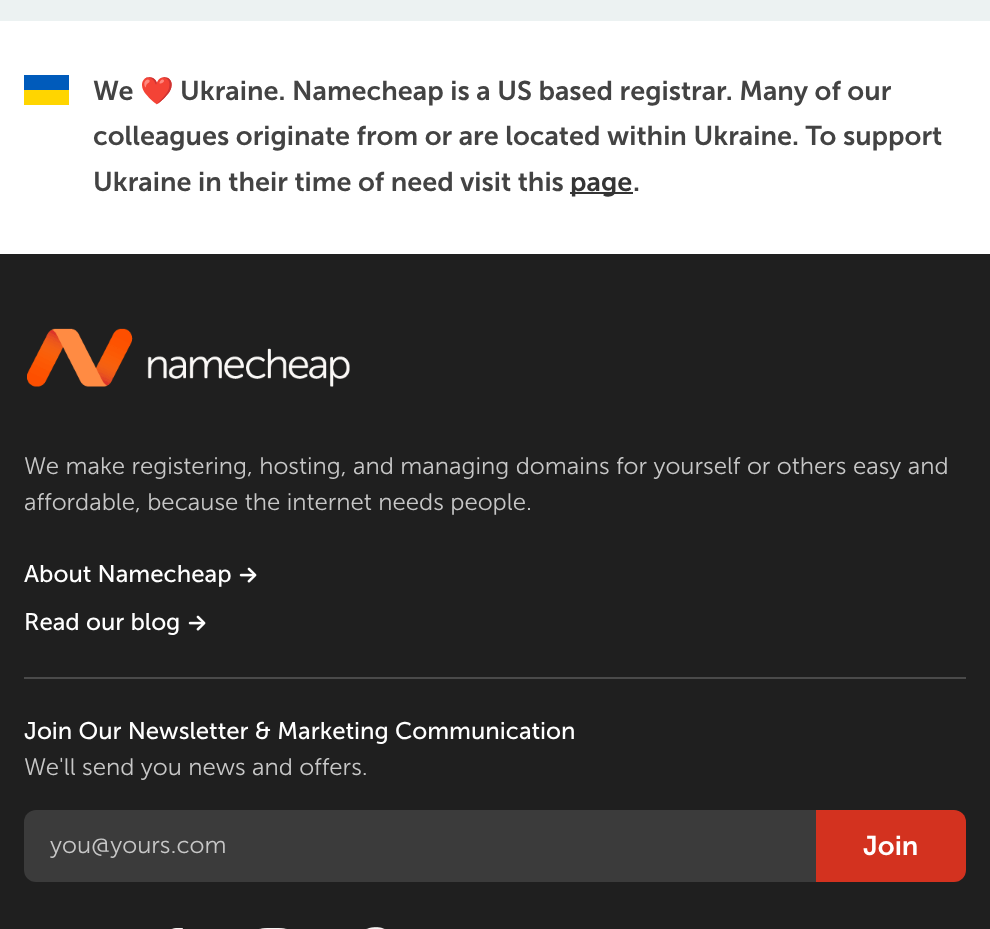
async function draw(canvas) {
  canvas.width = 990;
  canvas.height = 929;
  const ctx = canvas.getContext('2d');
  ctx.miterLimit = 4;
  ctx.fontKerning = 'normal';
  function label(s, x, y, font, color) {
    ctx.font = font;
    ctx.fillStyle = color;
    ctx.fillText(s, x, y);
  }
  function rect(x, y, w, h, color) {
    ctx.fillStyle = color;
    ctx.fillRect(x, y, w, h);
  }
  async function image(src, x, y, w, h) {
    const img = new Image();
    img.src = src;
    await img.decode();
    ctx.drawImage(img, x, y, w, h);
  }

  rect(0, 0, 990, 929, '#fff');
  rect(0, 0, 990, 21, '#ecf2f2');
  rect(24, 75, 45, 15, '#005bbb');
  rect(24, 90, 45, 15, '#ffd500');
  label('We', 93, 100, '600 27px Museo Sans', '#434343');
  label('❤️', 140, 100, 'bold 27px Noto Color Emoji', '#434343');
  label('Ukraine. Namecheap is a US based registrar. Many of our', 180, 100, '600 27px Museo Sans', '#434343');
  label('colleagues originate from or are located within Ukraine. To support', 93, 145, '600 27px Museo Sans', '#434343');
  label('Ukraine in their time of need visit this', 93, 191, '600 27px Museo Sans', '#434343');
  rect(570, 192, 63, 2, '#353535');
  label('page', 570, 191, '600 27px Museo Sans', '#353535');
  label('.', 633, 191, '600 27px Museo Sans', '#434343');
  rect(0, 254, 990, 675, '#1f1f1f');
  await image('assets/img1.png', 27, 328, 323, 59);
  label('We make registering, hosting, and managing domains for yourself or others easy and', 24, 474, '300 24px Museo Sans', '#c7c7c7');
  label('affordable, because the internet needs people.', 24, 510, '300 24px Museo Sans', '#c7c7c7');
  rect(24, 677, 942, 2, '#4a4a4a');
  label('About Namecheap', 24, 582, '24px Museo Sans', '#fff');
  await image('assets/img2.png', 239, 567, 18, 16);
  label('Read our blog', 24, 630, '24px Museo Sans', '#fff');
  await image('assets/img2.png', 188, 615, 18, 16);
  label('Join Our Newsletter & Marketing Communication', 24, 739, '24px Museo Sans', '#fff');
  label('We\'ll send you news and offers.', 24, 775, '300 24px Museo Sans', '#c7c7c7');
  ctx.fillStyle = '#3b3b3b';
  ctx.beginPath();
  ctx.roundRect(24, 810, 794, 72, [12, 0, 0, 12]);
  ctx.fill();
  label('you@yours.com', 50, 853, '300 24px Museo Sans', '#c7c7c7');
  ctx.fillStyle = '#d3321f';
  ctx.beginPath();
  ctx.roundRect(816, 810, 150, 72, [0, 12, 12, 0]);
  ctx.fill();
  label('Join', 863, 855, '600 27px Museo Sans', '#fff');
  await image('assets/img3.png', 171, 928, 12, 1);
  await image('assets/img4.png', 259, 928, 28, 1);
  await image('assets/img5.png', 366, 927, 20, 2);
}

draw(document.querySelector('canvas'));
